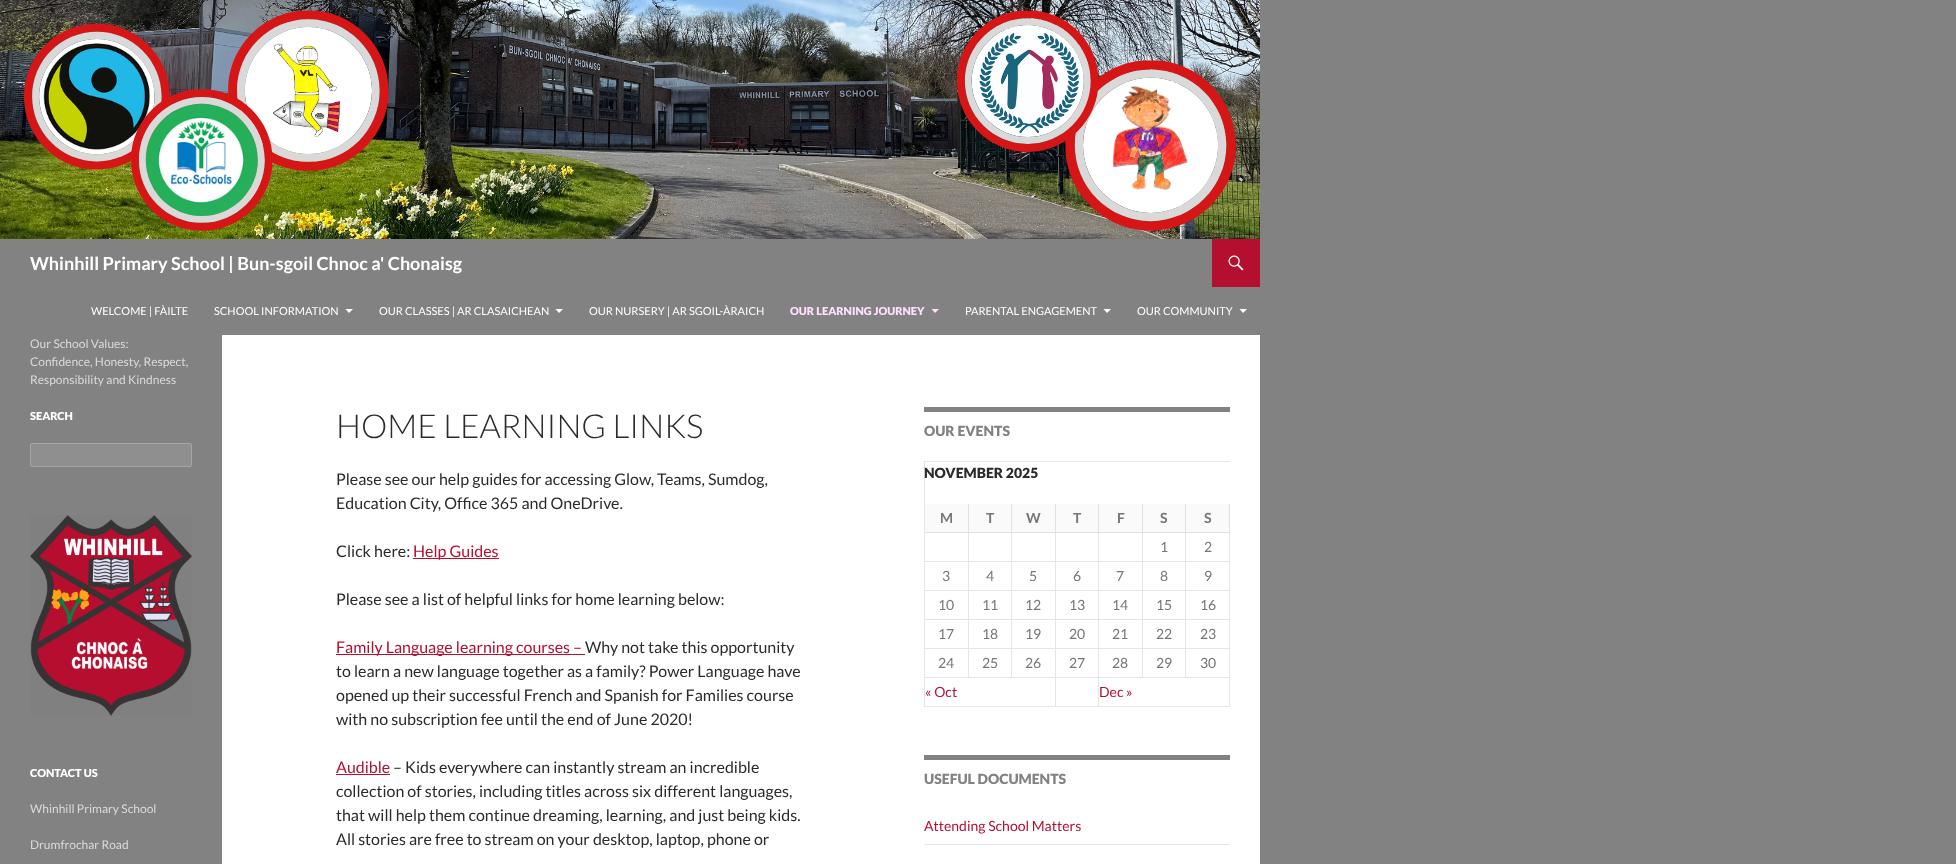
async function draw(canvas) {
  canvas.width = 1956;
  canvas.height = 864;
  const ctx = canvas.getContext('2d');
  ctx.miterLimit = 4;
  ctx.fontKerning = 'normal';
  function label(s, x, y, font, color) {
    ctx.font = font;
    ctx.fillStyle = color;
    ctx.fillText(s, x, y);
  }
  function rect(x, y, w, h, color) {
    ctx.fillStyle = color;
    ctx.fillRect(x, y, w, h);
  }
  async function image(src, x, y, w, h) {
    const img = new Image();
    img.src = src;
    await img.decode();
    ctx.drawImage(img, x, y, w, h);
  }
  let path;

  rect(0, 0, 1956, 864, '#828282');
  rect(222, 335, 1038, 529, '#fff');
  await image('assets/img1.png', 0, 0, 1260, 239);
  label('Whinhill Primary School | Bun-sgoil Chnoc a\' Chonaisg', 30, 270, 'bold 18px Lato', '#fff');
  rect(1212, 239, 48, 48, '#b50f30');
  await image('assets/img2.png', 1228, 255, 16, 16);
  label('WELCOME | FÀILTE', 91, 315, '11px Lato', '#fff');
  label('SCHOOL INFORMATION', 214, 315, '11px Lato', '#fff');
  path = new Path2D('M345.5 309H353L349 313Z');
  ctx.fill(path);
  label('OUR CLASSES | AR CLASAICHEAN', 379, 315, '11px Lato', '#fff');
  path = new Path2D('M555.5 309H563L559 313Z');
  ctx.fill(path);
  label('OUR NURSERY | AR SGOIL-ÀRAICH', 589, 315, '11px Lato', '#fff');
  label('OUR LEARNING JOURNEY', 790, 315, '900 11px Lato', '#ffdfff');
  path = new Path2D('M931.5 309H939L935 313Z');
  ctx.fill(path);
  label('PARENTAL ENGAGEMENT', 965, 315, '11px Lato', '#fff');
  path = new Path2D('M1103.5 309H1111L1107 313Z');
  ctx.fill(path);
  label('OUR COMMUNITY', 1137, 315, '11px Lato', '#fff');
  path = new Path2D('M1239.5 309H1247L1243 313Z');
  ctx.fill(path);
  label('Our School Values:', 30, 348, '12px Lato', '#dadada');
  label('Confidence, Honesty, Respect,', 30, 366, '12px Lato', '#dadada');
  label('Responsibility and Kindness', 30, 384, '12px Lato', '#dadada');
  label('SEARCH', 30, 420, '900 11px Lato', '#fff');
  ctx.fillStyle = '#8f8f8f';
  ctx.beginPath();
  ctx.roundRect(30.5, 443.5, 161, 23, 1.5);
  ctx.fill();
  ctx.strokeStyle = '#a5a5a5';
  ctx.stroke();
  await image('assets/img3.png', 30, 515, 162, 201);
  label('CONTACT US', 30, 777, '900 11px Lato', '#fff');
  label('Whinhill Primary School', 30, 813, '12px Lato', '#dadada');
  label('Drumfrochar Road', 30, 849, '12px Lato', '#dadada');
  label('HOME LEARNING LINKS', 336, 438, '300 33px Lato', '#2b2b2b');
  label('Please see our help guides for accessing Glow, Teams, Sumdog,', 336, 485, '16px Lato', '#2b2b2b');
  label('Education City, Office 365 and OneDrive.', 336, 509, '16px Lato', '#2b2b2b');
  label('Click here:', 336, 557, '16px Lato', '#2b2b2b');
  rect(413, 558, 86, 1, '#b50f30');
  label('Help Guides', 413, 557, '16px Lato', '#b50f30');
  label('Please see a list of helpful links for home learning below:', 336, 605, '16px Lato', '#2b2b2b');
  rect(336, 654, 249, 1, '#b50f30');
  label('Family Language learning courses –', 336, 653, '16px Lato', '#b50f30');
  label('Why not take this opportunity', 585, 653, '16px Lato', '#2b2b2b');
  label('to learn a new language together as a family? Power Language have', 336, 677, '16px Lato', '#2b2b2b');
  label('opened up their successful French and Spanish for Families course', 336, 701, '16px Lato', '#2b2b2b');
  label('with no subscription fee until the end of June 2020!', 336, 725, '16px Lato', '#2b2b2b');
  label('Audible', 336, 773, '16px Lato', '#b50f30');
  rect(336, 774, 54, 1, '#b50f30');
  label('– Kids everywhere can instantly stream an incredible', 393, 773, '16px Lato', '#2b2b2b');
  label('collection of stories, including titles across six different languages,', 336, 797, '16px Lato', '#2b2b2b');
  label('that will help them continue dreaming, learning, and just being kids.', 336, 821, '16px Lato', '#2b2b2b');
  label('All stories are free to stream on your desktop, laptop, phone or', 336, 845, '16px Lato', '#2b2b2b');
  rect(924, 407, 306, 5, '#828282');
  label('OUR EVENTS', 924, 436, '900 14px Lato', '#828282');
  ctx.fillStyle = '#e6e6e6';
  path = new Path2D('M924 461H1230V462H925Z');
  ctx.fill(path);
  ctx.fillStyle = '#0000001a';
  path = new Path2D('M924 707V461L925 462V707Z');
  ctx.fill(path);
  label('NOVEMBER 2025', 924, 478, '900 14px Lato', '#2b2b2b');
  rect(925, 504, 305, 29, '#fafafa');
  ctx.fillStyle = '#e1e1e1';
  path = new Path2D('M969 504V533L968 532V504Z');
  ctx.fill(path);
  ctx.fillStyle = '#0000001a';
  path = new Path2D('M969 533H925V532H968Z');
  ctx.fill(path);
  label('M', 940, 523, 'bold 14px Lato', '#767676');
  ctx.fillStyle = '#e1e1e1';
  path = new Path2D('M1012 504V533L1011 532V504Z');
  ctx.fill(path);
  ctx.fillStyle = '#0000001a';
  path = new Path2D('M1012 533H969V532H1011Z');
  ctx.fill(path);
  label('T', 986, 523, 'bold 14px Lato', '#767676');
  ctx.fillStyle = '#e1e1e1';
  path = new Path2D('M1056 504V533L1055 532V504Z');
  ctx.fill(path);
  ctx.fillStyle = '#0000001a';
  path = new Path2D('M1056 533H1012V532H1055Z');
  ctx.fill(path);
  label('W', 1026, 523, 'bold 14px Lato', '#767676');
  ctx.fillStyle = '#e1e1e1';
  path = new Path2D('M1099 504V533L1098 532V504Z');
  ctx.fill(path);
  ctx.fillStyle = '#0000001a';
  path = new Path2D('M1099 533H1056V532H1098Z');
  ctx.fill(path);
  label('T', 1073, 523, 'bold 14px Lato', '#767676');
  ctx.fillStyle = '#e1e1e1';
  path = new Path2D('M1143 504V533L1142 532V504Z');
  ctx.fill(path);
  ctx.fillStyle = '#0000001a';
  path = new Path2D('M1143 533H1099V532H1142Z');
  ctx.fill(path);
  label('F', 1117, 523, 'bold 14px Lato', '#767676');
  ctx.fillStyle = '#e1e1e1';
  path = new Path2D('M1186 504V533L1185 532V504Z');
  ctx.fill(path);
  ctx.fillStyle = '#0000001a';
  path = new Path2D('M1186 533H1143V532H1185Z');
  ctx.fill(path);
  label('S', 1160, 523, 'bold 14px Lato', '#767676');
  ctx.fillStyle = '#e1e1e1';
  path = new Path2D('M1230 504V533L1229 532V504Z');
  ctx.fill(path);
  ctx.fillStyle = '#0000001a';
  path = new Path2D('M1230 533H1186V532H1229Z');
  ctx.fill(path);
  label('S', 1204, 523, 'bold 14px Lato', '#767676');
  ctx.fillStyle = '#e6e6e6';
  path = new Path2D('M969 533V562L968 561V533Z');
  ctx.fill(path);
  ctx.fillStyle = '#0000001a';
  path = new Path2D('M969 562H925V561H968Z');
  ctx.fill(path);
  ctx.fillStyle = '#e6e6e6';
  path = new Path2D('M1012 533V562L1011 561V533Z');
  ctx.fill(path);
  ctx.fillStyle = '#0000001a';
  path = new Path2D('M1012 562H969V561H1011Z');
  ctx.fill(path);
  ctx.fillStyle = '#e6e6e6';
  path = new Path2D('M1056 533V562L1055 561V533Z');
  ctx.fill(path);
  ctx.fillStyle = '#0000001a';
  path = new Path2D('M1056 562H1012V561H1055Z');
  ctx.fill(path);
  ctx.fillStyle = '#e6e6e6';
  path = new Path2D('M1099 533V562L1098 561V533Z');
  ctx.fill(path);
  ctx.fillStyle = '#0000001a';
  path = new Path2D('M1099 562H1056V561H1098Z');
  ctx.fill(path);
  ctx.fillStyle = '#e6e6e6';
  path = new Path2D('M1143 533V562L1142 561V533Z');
  ctx.fill(path);
  ctx.fillStyle = '#0000001a';
  path = new Path2D('M1143 562H1099V561H1142Z');
  ctx.fill(path);
  ctx.fillStyle = '#e6e6e6';
  path = new Path2D('M1186 533V562L1185 561V533Z');
  ctx.fill(path);
  ctx.fillStyle = '#0000001a';
  path = new Path2D('M1186 562H1143V561H1185Z');
  ctx.fill(path);
  label('1', 1160, 552, '14px Lato', '#767676');
  ctx.fillStyle = '#e6e6e6';
  path = new Path2D('M1230 533V562L1229 561V533Z');
  ctx.fill(path);
  ctx.fillStyle = '#0000001a';
  path = new Path2D('M1230 562H1186V561H1229Z');
  ctx.fill(path);
  label('2', 1204, 552, '14px Lato', '#767676');
  ctx.fillStyle = '#e6e6e6';
  path = new Path2D('M969 562V591L968 590V562Z');
  ctx.fill(path);
  ctx.fillStyle = '#0000001a';
  path = new Path2D('M969 591H925V590H968Z');
  ctx.fill(path);
  label('3', 942, 581, '14px Lato', '#767676');
  ctx.fillStyle = '#e6e6e6';
  path = new Path2D('M1012 562V591L1011 590V562Z');
  ctx.fill(path);
  ctx.fillStyle = '#0000001a';
  path = new Path2D('M1012 591H969V590H1011Z');
  ctx.fill(path);
  label('4', 986, 581, '14px Lato', '#767676');
  ctx.fillStyle = '#e6e6e6';
  path = new Path2D('M1056 562V591L1055 590V562Z');
  ctx.fill(path);
  ctx.fillStyle = '#0000001a';
  path = new Path2D('M1056 591H1012V590H1055Z');
  ctx.fill(path);
  label('5', 1029, 581, '14px Lato', '#767676');
  ctx.fillStyle = '#e6e6e6';
  path = new Path2D('M1099 562V591L1098 590V562Z');
  ctx.fill(path);
  ctx.fillStyle = '#0000001a';
  path = new Path2D('M1099 591H1056V590H1098Z');
  ctx.fill(path);
  label('6', 1073, 581, '14px Lato', '#767676');
  ctx.fillStyle = '#e6e6e6';
  path = new Path2D('M1143 562V591L1142 590V562Z');
  ctx.fill(path);
  ctx.fillStyle = '#0000001a';
  path = new Path2D('M1143 591H1099V590H1142Z');
  ctx.fill(path);
  label('7', 1116, 581, '14px Lato', '#767676');
  ctx.fillStyle = '#e6e6e6';
  path = new Path2D('M1186 562V591L1185 590V562Z');
  ctx.fill(path);
  ctx.fillStyle = '#0000001a';
  path = new Path2D('M1186 591H1143V590H1185Z');
  ctx.fill(path);
  label('8', 1160, 581, '14px Lato', '#767676');
  ctx.fillStyle = '#e6e6e6';
  path = new Path2D('M1230 562V591L1229 590V562Z');
  ctx.fill(path);
  ctx.fillStyle = '#0000001a';
  path = new Path2D('M1230 591H1186V590H1229Z');
  ctx.fill(path);
  label('9', 1204, 581, '14px Lato', '#767676');
  ctx.fillStyle = '#e6e6e6';
  path = new Path2D('M969 591V620L968 619V591Z');
  ctx.fill(path);
  ctx.fillStyle = '#0000001a';
  path = new Path2D('M969 620H925V619H968Z');
  ctx.fill(path);
  label('10', 938, 610, '14px Lato', '#767676');
  ctx.fillStyle = '#e6e6e6';
  path = new Path2D('M1012 591V620L1011 619V591Z');
  ctx.fill(path);
  ctx.fillStyle = '#0000001a';
  path = new Path2D('M1012 620H969V619H1011Z');
  ctx.fill(path);
  label('11', 982, 610, '14px Lato', '#767676');
  ctx.fillStyle = '#e6e6e6';
  path = new Path2D('M1056 591V620L1055 619V591Z');
  ctx.fill(path);
  ctx.fillStyle = '#0000001a';
  path = new Path2D('M1056 620H1012V619H1055Z');
  ctx.fill(path);
  label('12', 1025, 610, '14px Lato', '#767676');
  ctx.fillStyle = '#e6e6e6';
  path = new Path2D('M1099 591V620L1098 619V591Z');
  ctx.fill(path);
  ctx.fillStyle = '#0000001a';
  path = new Path2D('M1099 620H1056V619H1098Z');
  ctx.fill(path);
  label('13', 1069, 610, '14px Lato', '#767676');
  ctx.fillStyle = '#e6e6e6';
  path = new Path2D('M1143 591V620L1142 619V591Z');
  ctx.fill(path);
  ctx.fillStyle = '#0000001a';
  path = new Path2D('M1143 620H1099V619H1142Z');
  ctx.fill(path);
  label('14', 1112, 610, '14px Lato', '#767676');
  ctx.fillStyle = '#e6e6e6';
  path = new Path2D('M1186 591V620L1185 619V591Z');
  ctx.fill(path);
  ctx.fillStyle = '#0000001a';
  path = new Path2D('M1186 620H1143V619H1185Z');
  ctx.fill(path);
  label('15', 1156, 610, '14px Lato', '#767676');
  ctx.fillStyle = '#e6e6e6';
  path = new Path2D('M1230 591V620L1229 619V591Z');
  ctx.fill(path);
  ctx.fillStyle = '#0000001a';
  path = new Path2D('M1230 620H1186V619H1229Z');
  ctx.fill(path);
  label('16', 1200, 610, '14px Lato', '#767676');
  ctx.fillStyle = '#e6e6e6';
  path = new Path2D('M969 620V649L968 648V620Z');
  ctx.fill(path);
  ctx.fillStyle = '#0000001a';
  path = new Path2D('M969 649H925V648H968Z');
  ctx.fill(path);
  label('17', 938, 639, '14px Lato', '#767676');
  ctx.fillStyle = '#e6e6e6';
  path = new Path2D('M1012 620V649L1011 648V620Z');
  ctx.fill(path);
  ctx.fillStyle = '#0000001a';
  path = new Path2D('M1012 649H969V648H1011Z');
  ctx.fill(path);
  label('18', 982, 639, '14px Lato', '#767676');
  ctx.fillStyle = '#e6e6e6';
  path = new Path2D('M1056 620V649L1055 648V620Z');
  ctx.fill(path);
  ctx.fillStyle = '#0000001a';
  path = new Path2D('M1056 649H1012V648H1055Z');
  ctx.fill(path);
  label('19', 1025, 639, '14px Lato', '#767676');
  ctx.fillStyle = '#e6e6e6';
  path = new Path2D('M1099 620V649L1098 648V620Z');
  ctx.fill(path);
  ctx.fillStyle = '#0000001a';
  path = new Path2D('M1099 649H1056V648H1098Z');
  ctx.fill(path);
  label('20', 1069, 639, '14px Lato', '#767676');
  ctx.fillStyle = '#e6e6e6';
  path = new Path2D('M1143 620V649L1142 648V620Z');
  ctx.fill(path);
  ctx.fillStyle = '#0000001a';
  path = new Path2D('M1143 649H1099V648H1142Z');
  ctx.fill(path);
  label('21', 1112, 639, '14px Lato', '#767676');
  ctx.fillStyle = '#e6e6e6';
  path = new Path2D('M1186 620V649L1185 648V620Z');
  ctx.fill(path);
  ctx.fillStyle = '#0000001a';
  path = new Path2D('M1186 649H1143V648H1185Z');
  ctx.fill(path);
  label('22', 1156, 639, '14px Lato', '#767676');
  ctx.fillStyle = '#e6e6e6';
  path = new Path2D('M1230 620V649L1229 648V620Z');
  ctx.fill(path);
  ctx.fillStyle = '#0000001a';
  path = new Path2D('M1230 649H1186V648H1229Z');
  ctx.fill(path);
  label('23', 1200, 639, '14px Lato', '#767676');
  ctx.fillStyle = '#e6e6e6';
  path = new Path2D('M969 649V678L968 677V649Z');
  ctx.fill(path);
  ctx.fillStyle = '#0000001a';
  path = new Path2D('M969 678H925V677H968Z');
  ctx.fill(path);
  label('24', 938, 668, '14px Lato', '#767676');
  ctx.fillStyle = '#e6e6e6';
  path = new Path2D('M1012 649V678L1011 677V649Z');
  ctx.fill(path);
  ctx.fillStyle = '#0000001a';
  path = new Path2D('M1012 678H969V677H1011Z');
  ctx.fill(path);
  label('25', 982, 668, '14px Lato', '#767676');
  ctx.fillStyle = '#e6e6e6';
  path = new Path2D('M1056 649V678L1055 677V649Z');
  ctx.fill(path);
  ctx.fillStyle = '#0000001a';
  path = new Path2D('M1056 678H1012V677H1055Z');
  ctx.fill(path);
  label('26', 1025, 668, '14px Lato', '#767676');
  ctx.fillStyle = '#e6e6e6';
  path = new Path2D('M1099 649V678L1098 677V649Z');
  ctx.fill(path);
  ctx.fillStyle = '#0000001a';
  path = new Path2D('M1099 678H1056V677H1098Z');
  ctx.fill(path);
  label('27', 1069, 668, '14px Lato', '#767676');
  ctx.fillStyle = '#e6e6e6';
  path = new Path2D('M1143 649V678L1142 677V649Z');
  ctx.fill(path);
  ctx.fillStyle = '#0000001a';
  path = new Path2D('M1143 678H1099V677H1142Z');
  ctx.fill(path);
  label('28', 1112, 668, '14px Lato', '#767676');
  ctx.fillStyle = '#e6e6e6';
  path = new Path2D('M1186 649V678L1185 677V649Z');
  ctx.fill(path);
  ctx.fillStyle = '#0000001a';
  path = new Path2D('M1186 678H1143V677H1185Z');
  ctx.fill(path);
  label('29', 1156, 668, '14px Lato', '#767676');
  ctx.fillStyle = '#e6e6e6';
  path = new Path2D('M1230 649V678L1229 677V649Z');
  ctx.fill(path);
  ctx.fillStyle = '#0000001a';
  path = new Path2D('M1230 678H1186V677H1229Z');
  ctx.fill(path);
  label('30', 1200, 668, '14px Lato', '#767676');
  ctx.fillStyle = '#e6e6e6';
  path = new Path2D('M1056 678V707L1055 706V678Z');
  ctx.fill(path);
  ctx.fillStyle = '#0000001a';
  path = new Path2D('M1056 707H925V706H1055Z');
  ctx.fill(path);
  label('« Oct', 925, 697, '14px Lato', '#b50f30');
  ctx.fillStyle = '#e6e6e6';
  path = new Path2D('M1099 678V707L1098 706V678Z');
  ctx.fill(path);
  ctx.fillStyle = '#0000001a';
  path = new Path2D('M1099 707H1056V706H1098Z');
  ctx.fill(path);
  ctx.fillStyle = '#e6e6e6';
  path = new Path2D('M1230 678V707L1229 706V678Z');
  ctx.fill(path);
  ctx.fillStyle = '#0000001a';
  path = new Path2D('M1230 707H1099V706H1229Z');
  ctx.fill(path);
  label('Dec »', 1099, 697, '14px Lato', '#b50f30');
  rect(924, 755, 306, 5, '#828282');
  label('USEFUL DOCUMENTS', 924, 784, '900 14px Lato', '#828282');
  label('Attending School Matters', 924, 831, '14px Lato', '#b50f30');
  rect(924, 844, 306, 1, '#e6e6e6');
}

draw(document.querySelector('canvas'));
